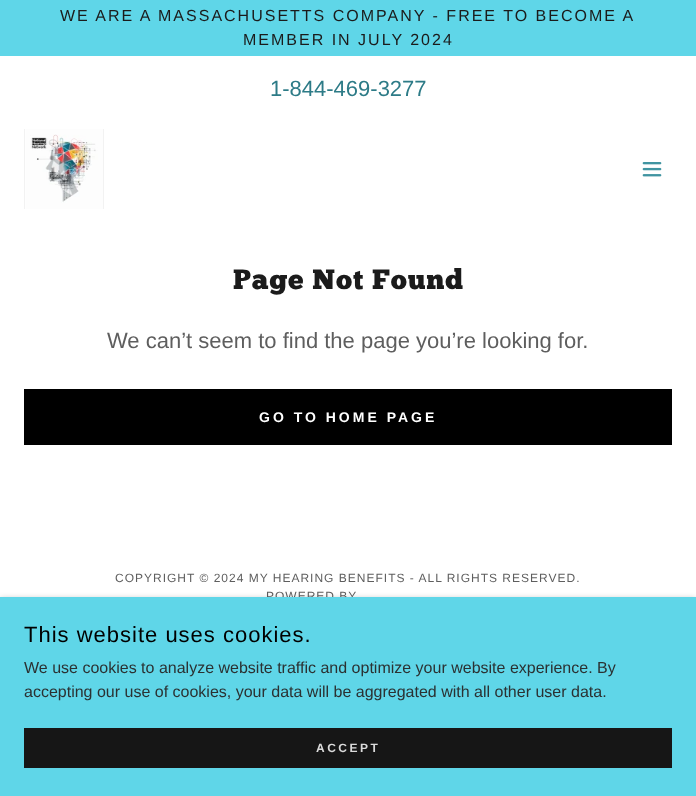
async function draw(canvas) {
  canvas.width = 696;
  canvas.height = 796;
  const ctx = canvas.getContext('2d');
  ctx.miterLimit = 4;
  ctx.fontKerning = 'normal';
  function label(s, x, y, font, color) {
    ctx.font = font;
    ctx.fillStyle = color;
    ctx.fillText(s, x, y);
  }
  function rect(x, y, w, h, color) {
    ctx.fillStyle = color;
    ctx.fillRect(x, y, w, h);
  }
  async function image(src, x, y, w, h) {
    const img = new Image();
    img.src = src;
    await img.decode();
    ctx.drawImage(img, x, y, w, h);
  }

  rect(0, 0, 696, 796, '#fff');
  rect(0, 0, 696, 56, '#5fd6e8');
  ctx.letterSpacing = '2px';
  label('WE ARE A MASSACHUSETTS COMPANY - FREE TO BECOME A', 60, 21, '16px Liberation Sans', '#1b1b1b');
  label('MEMBER IN JULY 2024', 243, 45, '16px Liberation Sans', '#1b1b1b');
  ctx.letterSpacing = '0px';
  label('1-844-469-3277', 270, 96, '22px Liberation Sans', '#2d7b87');
  await image('assets/img1.png', 24, 129, 80, 80);
  await image('assets/img2.png', 642, 162, 20, 15);
  ctx.letterSpacing = '0.9px';
  label('Page Not Found', 233, 289, '28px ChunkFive', '#1b1b1b');
  ctx.letterSpacing = '0px';
  label('We can’t seem to find the page you’re looking for.', 107, 348, '22px Liberation Sans', '#5e5e5e');
  rect(24, 389, 648, 56, '#000');
  ctx.letterSpacing = '3px';
  label('GO TO HOME PAGE', 259, 422, 'bold 14px Liberation Sans', '#fff');
  ctx.letterSpacing = '1px';
  label('COPYRIGHT © 2024 MY HEARING BENEFITS - ALL RIGHTS RESERVED.', 115, 582, '12px Liberation Sans', '#5e5e5e');
  label('POWERED BY', 266, 600, '12px Liberation Sans', '#5e5e5e');
  ctx.fillStyle = '#0000004d';
  ctx.filter = 'blur(3px)';
  ctx.beginPath();
  ctx.rect(0, 599, 696, 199);
  ctx.fill();
  ctx.filter = 'none';
  rect(0, 597, 696, 199, '#5fd6e8');
  label('This website uses cookies.', 24, 642, '22px Liberation Sans', '#000');
  ctx.letterSpacing = '0px';
  label('We use cookies to analyze website traffic and optimize your website experience. By', 24, 673, '16px Liberation Sans', '#2b3132');
  label('accepting our use of cookies, your data will be aggregated with all other user data.', 24, 697, '16px Liberation Sans', '#2b3132');
  rect(24, 728, 648, 40, '#161616');
  ctx.letterSpacing = '2.5px';
  label('ACCEPT', 316, 752, 'bold 12px Liberation Sans', '#dbdbdb');
}

draw(document.querySelector('canvas'));
